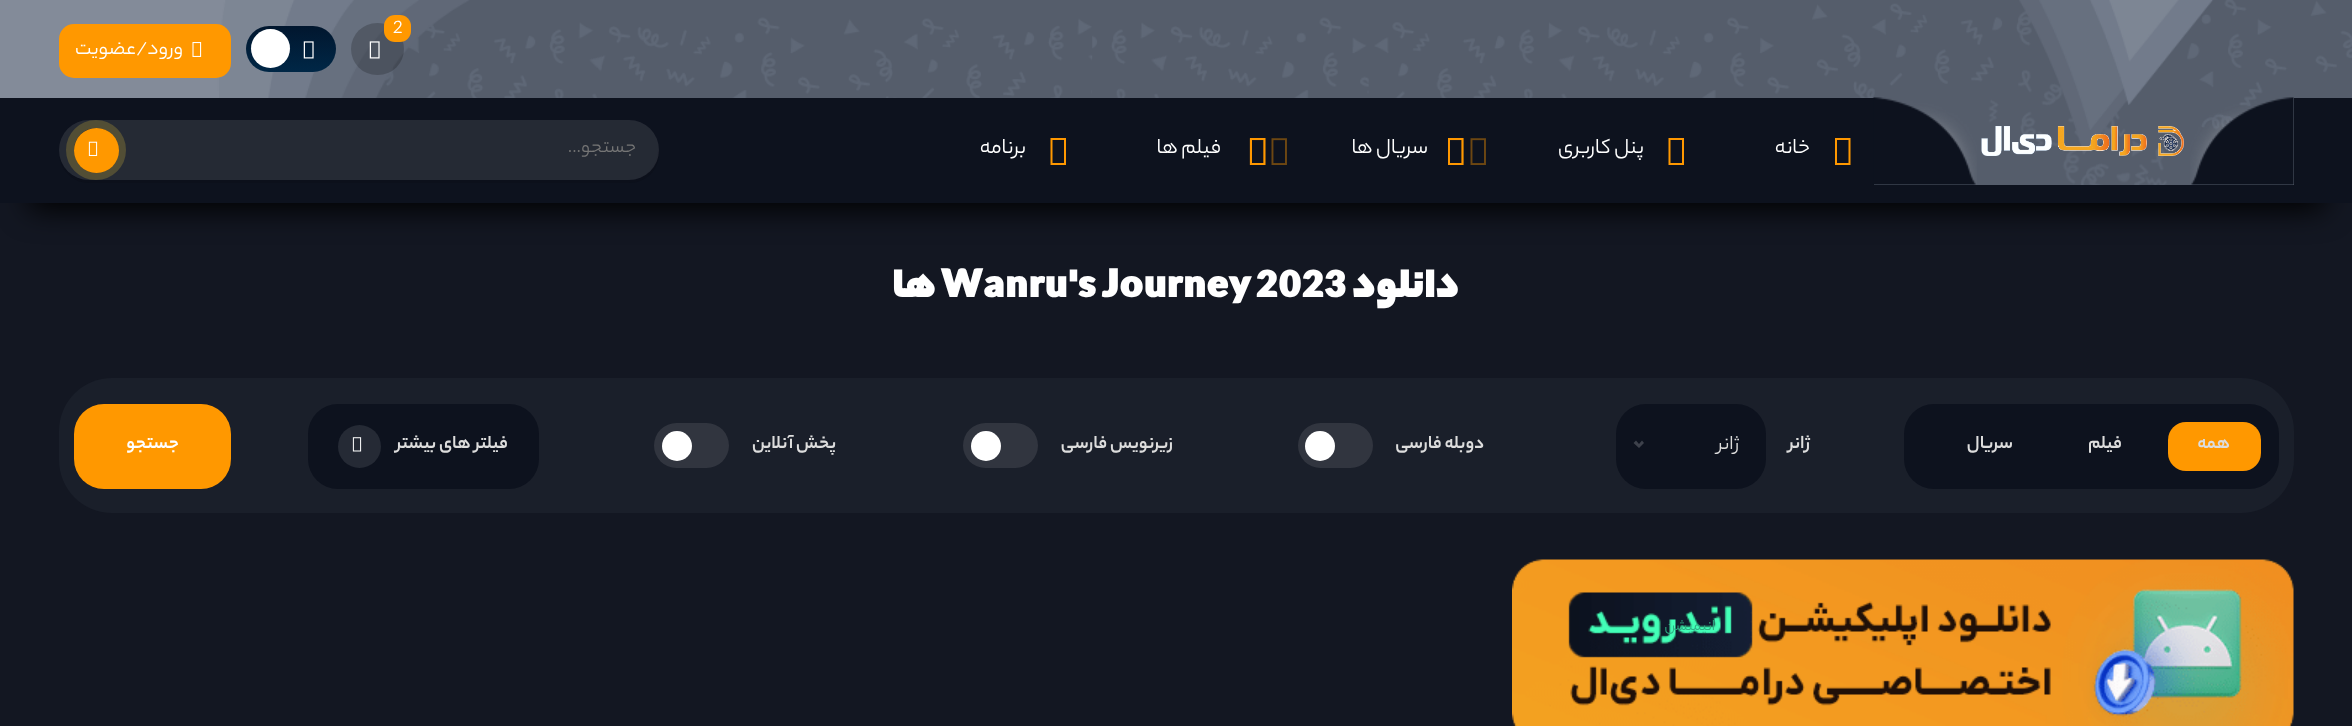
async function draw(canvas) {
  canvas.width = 2352;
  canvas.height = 726;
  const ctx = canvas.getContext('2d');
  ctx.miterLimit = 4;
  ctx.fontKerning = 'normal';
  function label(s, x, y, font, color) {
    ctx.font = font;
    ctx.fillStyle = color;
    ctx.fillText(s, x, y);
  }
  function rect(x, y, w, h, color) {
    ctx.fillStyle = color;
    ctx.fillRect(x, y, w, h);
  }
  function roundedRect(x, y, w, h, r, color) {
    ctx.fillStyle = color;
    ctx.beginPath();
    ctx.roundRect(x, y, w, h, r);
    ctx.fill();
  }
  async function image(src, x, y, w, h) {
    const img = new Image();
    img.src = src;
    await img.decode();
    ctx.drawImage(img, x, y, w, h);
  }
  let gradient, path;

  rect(0, 0, 2352, 726, '#131722');
  ctx.fillStyle = '#000';
  ctx.filter = 'blur(15px)';
  ctx.beginPath();
  ctx.rect(29, 63, 2295, 146);
  ctx.fill();
  ctx.filter = 'none';
  await image('assets/img1.png', 0, 0, 2352, 185);
  roundedRect(351, 23, 53, 52, 26, '#00000033');
  roundedRect(384, 15, 27, 27, 11, '#ff9800');
  label('2', 393, 33, '19.5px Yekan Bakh', '#fff');
  await image('assets/img2.png', 369, 41, 11, 18);
  gradient = ctx.createLinearGradient(291, 25, 291, 72);
  gradient.addColorStop(0, '#01162e');
  gradient.addColorStop(1, '#002746');
  ctx.fillStyle = gradient;
  ctx.beginPath();
  ctx.roundRect(246, 26, 90, 46, 23);
  ctx.fill();
  await image('assets/img3.png', 303, 41, 11, 18);
  ctx.fillStyle = '#fff';
  ctx.beginPath();
  ctx.arc(270.5, 48.5, 19.5, 0, 2 * Math.PI);
  ctx.fill();
  rect(2294, 98, 58, 105, '#0d121e');
  rect(1874, 185, 420, 18, '#0d121e');
  await image('assets/img4.png', 2190, 97, 104, 88);
  await image('assets/img5.png', 1981, 126, 203, 30);
  rect(0, 98, 1874, 105, '#0d121e');
  await image('assets/img6.png', 1873, 97, 104, 88);
  roundedRect(59, 24, 172, 54, 15, '#ff9800');
  await image('assets/img7.png', 192, 42, 10, 15);
  ctx.direction = 'rtl';
  label('ورود/عضویت', 183, 54, '21px Yekan Bakh', '#fff');
  ctx.fillStyle = '#ff9800';
  path = new Path2D('M1835 165V138H1850.5V165ZM1837 163H1848.5V140H1837Z');
  ctx.fill(path);
  label('خانه', 1810, 153, '22.5px Yekan Bakh', '#fff');
  ctx.fillStyle = '#ff9800';
  path = new Path2D('M1668.5 165V138H1684V165ZM1670.5 163H1682V140H1670.5Z');
  ctx.fill(path);
  label('پنل کاربری', 1644, 153, '22.5px Yekan Bakh', '#fff');
  ctx.fillStyle = '#ff9800';
  path = new Path2D('M1448 165V138H1463.5V165ZM1450 163H1461.5V140H1450Z');
  ctx.fill(path);
  await image('assets/img8.png', 1450, 138, 36, 27);
  label('سریال ها', 1428, 153, '22.5px Yekan Bakh', '#fff');
  ctx.fillStyle = '#ff9800';
  path = new Path2D('M1250 165V138H1265.5V165ZM1252 163H1263.5V140H1252Z');
  ctx.fill(path);
  await image('assets/img9.png', 1249, 138, 38, 27);
  label('فیلم ها', 1221, 153, '22.5px Yekan Bakh', '#fff');
  ctx.fillStyle = '#ff9800';
  path = new Path2D('M1050.5 165V138H1066V165ZM1052.5 163H1064V140H1052.5Z');
  ctx.fill(path);
  label('برنامه', 1026, 153, '22.5px Yekan Bakh', '#fff');
  ctx.fillStyle = '#0c101b';
  path = new Path2D('M59 156C61 171 74 183 89 183H629C646 183 659 170 659 153L658 147V150C658 167 645 180 628 180H88C74 180 62 170 59 156Z');
  ctx.fill(path);
  roundedRect(59, 120, 600, 60, 30, '#ffffff1a');
  label('جستجو...', 636, 152, '20px Yekan Bakh', '#757575');
  ctx.beginPath();
  ctx.arc(96, 150, 26, 0, 2 * Math.PI);
  ctx.strokeStyle = '#524e35';
  ctx.lineWidth = 8;
  ctx.stroke();
  ctx.fillStyle = '#ff9800';
  ctx.beginPath();
  ctx.arc(96.5, 150.5, 22.5, 0, 2 * Math.PI);
  ctx.fill();
  await image('assets/img10.png', 88, 141, 10, 15);
  label('دانلود', 1459, 297, '900 45px Yekan Bakh', '#fff');
  ctx.direction = 'ltr';
  label('Wanru\'s Journey 2023', 941, 297, '900 45px Yekan Bakh', '#fff');
  ctx.direction = 'rtl';
  label('ها', 936, 297, '900 45px Yekan Bakh', '#fff');
  roundedRect(59, 378, 2235, 135, 53, '#1a1f2a');
  roundedRect(1904, 404, 375, 85, 30, '#0d121e');
  roundedRect(2168, 422, 93, 49, 18, '#ff9800');
  label('همه', 2230, 448, 'bold 19.5px Yekan Bakh', '#ddd');
  label('فیلم', 2122, 448, 'bold 19.5px Yekan Bakh', '#ddd');
  label('سریال', 2013, 448, 'bold 19.5px Yekan Bakh', '#ddd');
  label('ژانر', 1810, 448, 'bold 19.5px Yekan Bakh', '#ddd');
  roundedRect(1616, 404, 150, 85, 30, '#0d121e');
  label('ژانر', 1739, 449, '21px Yekan Bakh', '#ddd');
  ctx.fillStyle = '#3d414b';
  path = new Path2D('M1644 443L1639 448V444L1642 440.5ZM1639 448L1633.5 443L1636 440.5L1639 444Z');
  ctx.fill(path);
  await image('assets/img12.png', 1512, 559, 782, 167);
  label('انیمیشن', 1715, 630, '16px Yekan Bakh', '#30ac84');
  label('دوبله فارسی', 1484, 448, 'bold 19.5px Yekan Bakh', '#ddd');
  roundedRect(1298, 423, 75, 45, 22.5, '#31353f');
  ctx.fillStyle = '#fff';
  ctx.beginPath();
  ctx.arc(1320, 446, 15, 0, 2 * Math.PI);
  ctx.fill();
  label('زیرنویس فارسی', 1173, 448, 'bold 19.5px Yekan Bakh', '#ddd');
  roundedRect(963, 423, 75, 45, 22.5, '#31353f');
  ctx.fillStyle = '#fff';
  ctx.beginPath();
  ctx.arc(986, 446, 15, 0, 2 * Math.PI);
  ctx.fill();
  label('پخش آنلاین', 836, 448, 'bold 19.5px Yekan Bakh', '#ddd');
  roundedRect(654, 423, 75, 45, 22.5, '#31353f');
  ctx.fillStyle = '#fff';
  ctx.beginPath();
  ctx.arc(677, 446, 15, 0, 2 * Math.PI);
  ctx.fill();
  roundedRect(308, 404, 231, 85, 30, '#0d121e');
  label('فیلتر های بیشتر', 508, 448, 'bold 19.5px Yekan Bakh', '#ddd');
  ctx.fillStyle = '#252a35';
  ctx.beginPath();
  ctx.arc(359.5, 446.5, 21.5, 0, 2 * Math.PI);
  ctx.fill();
  await image('assets/img11.png', 352, 437, 10, 15);
  roundedRect(74, 404, 157, 85, 30, '#ff9800');
  label('جستجو', 179, 448, 'bold 19.5px Yekan Bakh', '#fff');
}

draw(document.querySelector('canvas'));
